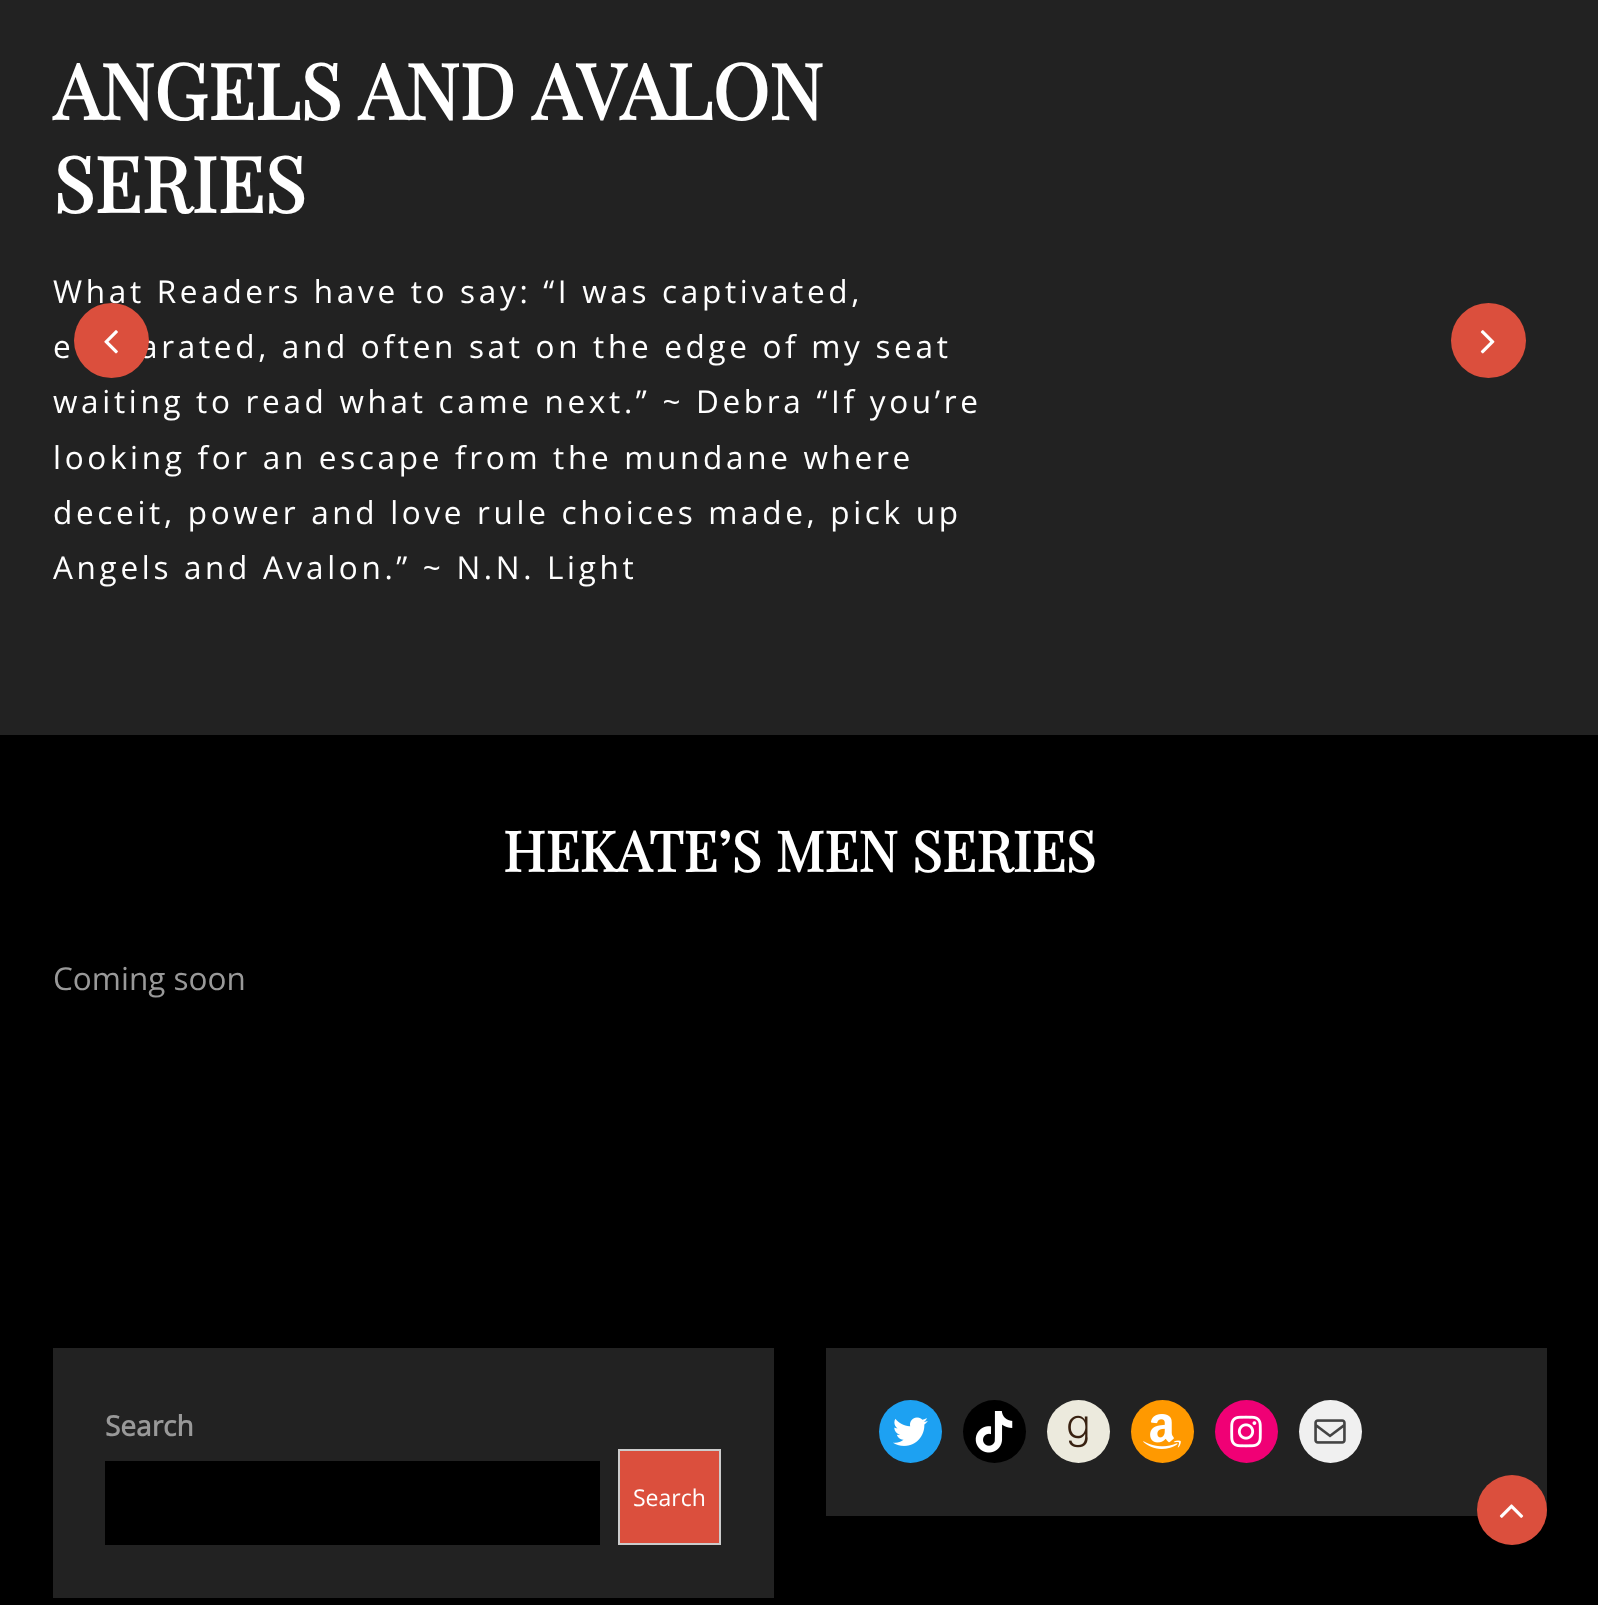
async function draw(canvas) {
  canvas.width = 1598;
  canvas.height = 1605;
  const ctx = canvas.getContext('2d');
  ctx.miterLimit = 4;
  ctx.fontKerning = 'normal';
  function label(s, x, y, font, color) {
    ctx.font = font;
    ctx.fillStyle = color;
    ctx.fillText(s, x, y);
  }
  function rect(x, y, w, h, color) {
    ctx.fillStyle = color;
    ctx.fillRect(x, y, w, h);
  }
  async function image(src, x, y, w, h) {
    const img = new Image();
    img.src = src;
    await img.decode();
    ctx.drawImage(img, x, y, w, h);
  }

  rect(0, 0, 1598, 1605, '#000');
  rect(0, 0, 1598, 735, '#222');
  label('ANGELS AND AVALON', 53, 120, 'bold 77px Playfair Display', '#fff');
  label('SERIES', 53, 213, 'bold 77px Playfair Display', '#fff');
  ctx.letterSpacing = '3.68px';
  label('What Readers have to say: “I was captivated,', 53, 303, '31.5px Open Sans', '#fff');
  label('e', 53, 358, '31.5px Open Sans', '#fff');
  label('arated, and often sat on the edge of my seat', 140, 358, '31.5px Open Sans', '#fff');
  label('waiting to read what came next.” ~ Debra “If you’re', 53, 413, '31.5px Open Sans', '#fff');
  label('looking for an escape from the mundane where', 53, 469, '31.5px Open Sans', '#fff');
  label('deceit, power and love rule choices made, pick up', 53, 524, '31.5px Open Sans', '#fff');
  label('Angels and Avalon.” ~ N.N. Light', 53, 579, '31.5px Open Sans', '#fff');
  ctx.fillStyle = '#db4f3d';
  ctx.beginPath();
  ctx.arc(111.5, 340.5, 37.5, 0, 2 * Math.PI);
  ctx.fill();
  await image('assets/img1.png', 104, 330, 14, 24);
  ctx.beginPath();
  ctx.arc(1488.5, 340.5, 37.5, 0, 2 * Math.PI);
  ctx.fill();
  await image('assets/img2.png', 1480, 330, 15, 24);
  ctx.letterSpacing = '0px';
  label('HEKATE’S MEN SERIES', 503, 872, 'bold 56px Playfair Display', '#fff');
  label('Coming soon', 53, 990, '31.5px Open Sans', '#999');
  rect(53, 1348, 721, 250, '#222');
  label('Search', 105, 1436, 'bold 28px Open Sans', '#999');
  rect(105, 1461, 495, 84, '#000');
  ctx.fillStyle = '#db4f3d';
  ctx.beginPath();
  ctx.rect(619, 1450, 101, 94);
  ctx.fill();
  ctx.strokeStyle = '#ccc';
  ctx.lineWidth = 2;
  ctx.stroke();
  label('Search', 633, 1506, '23px Open Sans', '#fff');
  rect(826, 1348, 721, 168, '#222');
  ctx.fillStyle = '#1da1f2';
  ctx.beginPath();
  ctx.arc(910.5, 1431.5, 31.5, 0, 2 * Math.PI);
  ctx.fill();
  await image('assets/img3.png', 893, 1417, 35, 29);
  ctx.fillStyle = '#000';
  ctx.beginPath();
  ctx.arc(994.5, 1431.5, 31.5, 0, 2 * Math.PI);
  ctx.fill();
  await image('assets/img4.png', 975, 1411, 38, 42);
  ctx.fillStyle = '#eceadd';
  ctx.beginPath();
  ctx.arc(1078.5, 1431.5, 31.5, 0, 2 * Math.PI);
  ctx.fill();
  await image('assets/img5.png', 1068, 1415, 20, 33);
  ctx.fillStyle = '#f90';
  ctx.beginPath();
  ctx.arc(1162.5, 1431.5, 31.5, 0, 2 * Math.PI);
  ctx.fill();
  await image('assets/img6.png', 1143, 1414, 38, 35);
  ctx.fillStyle = '#f00075';
  ctx.beginPath();
  ctx.arc(1246.5, 1431.5, 31.5, 0, 2 * Math.PI);
  ctx.fill();
  await image('assets/img7.png', 1230, 1415, 32, 33);
  ctx.fillStyle = '#f0f0f0';
  ctx.beginPath();
  ctx.arc(1330.5, 1431.5, 31.5, 0, 2 * Math.PI);
  ctx.fill();
  await image('assets/img8.png', 1314, 1419, 32, 25);
  ctx.fillStyle = '#db4f3d';
  ctx.beginPath();
  ctx.arc(1512, 1510, 35, 0, 2 * Math.PI);
  ctx.fill();
  await image('assets/img9.png', 1499, 1504, 25, 14);
}

draw(document.querySelector('canvas'));
